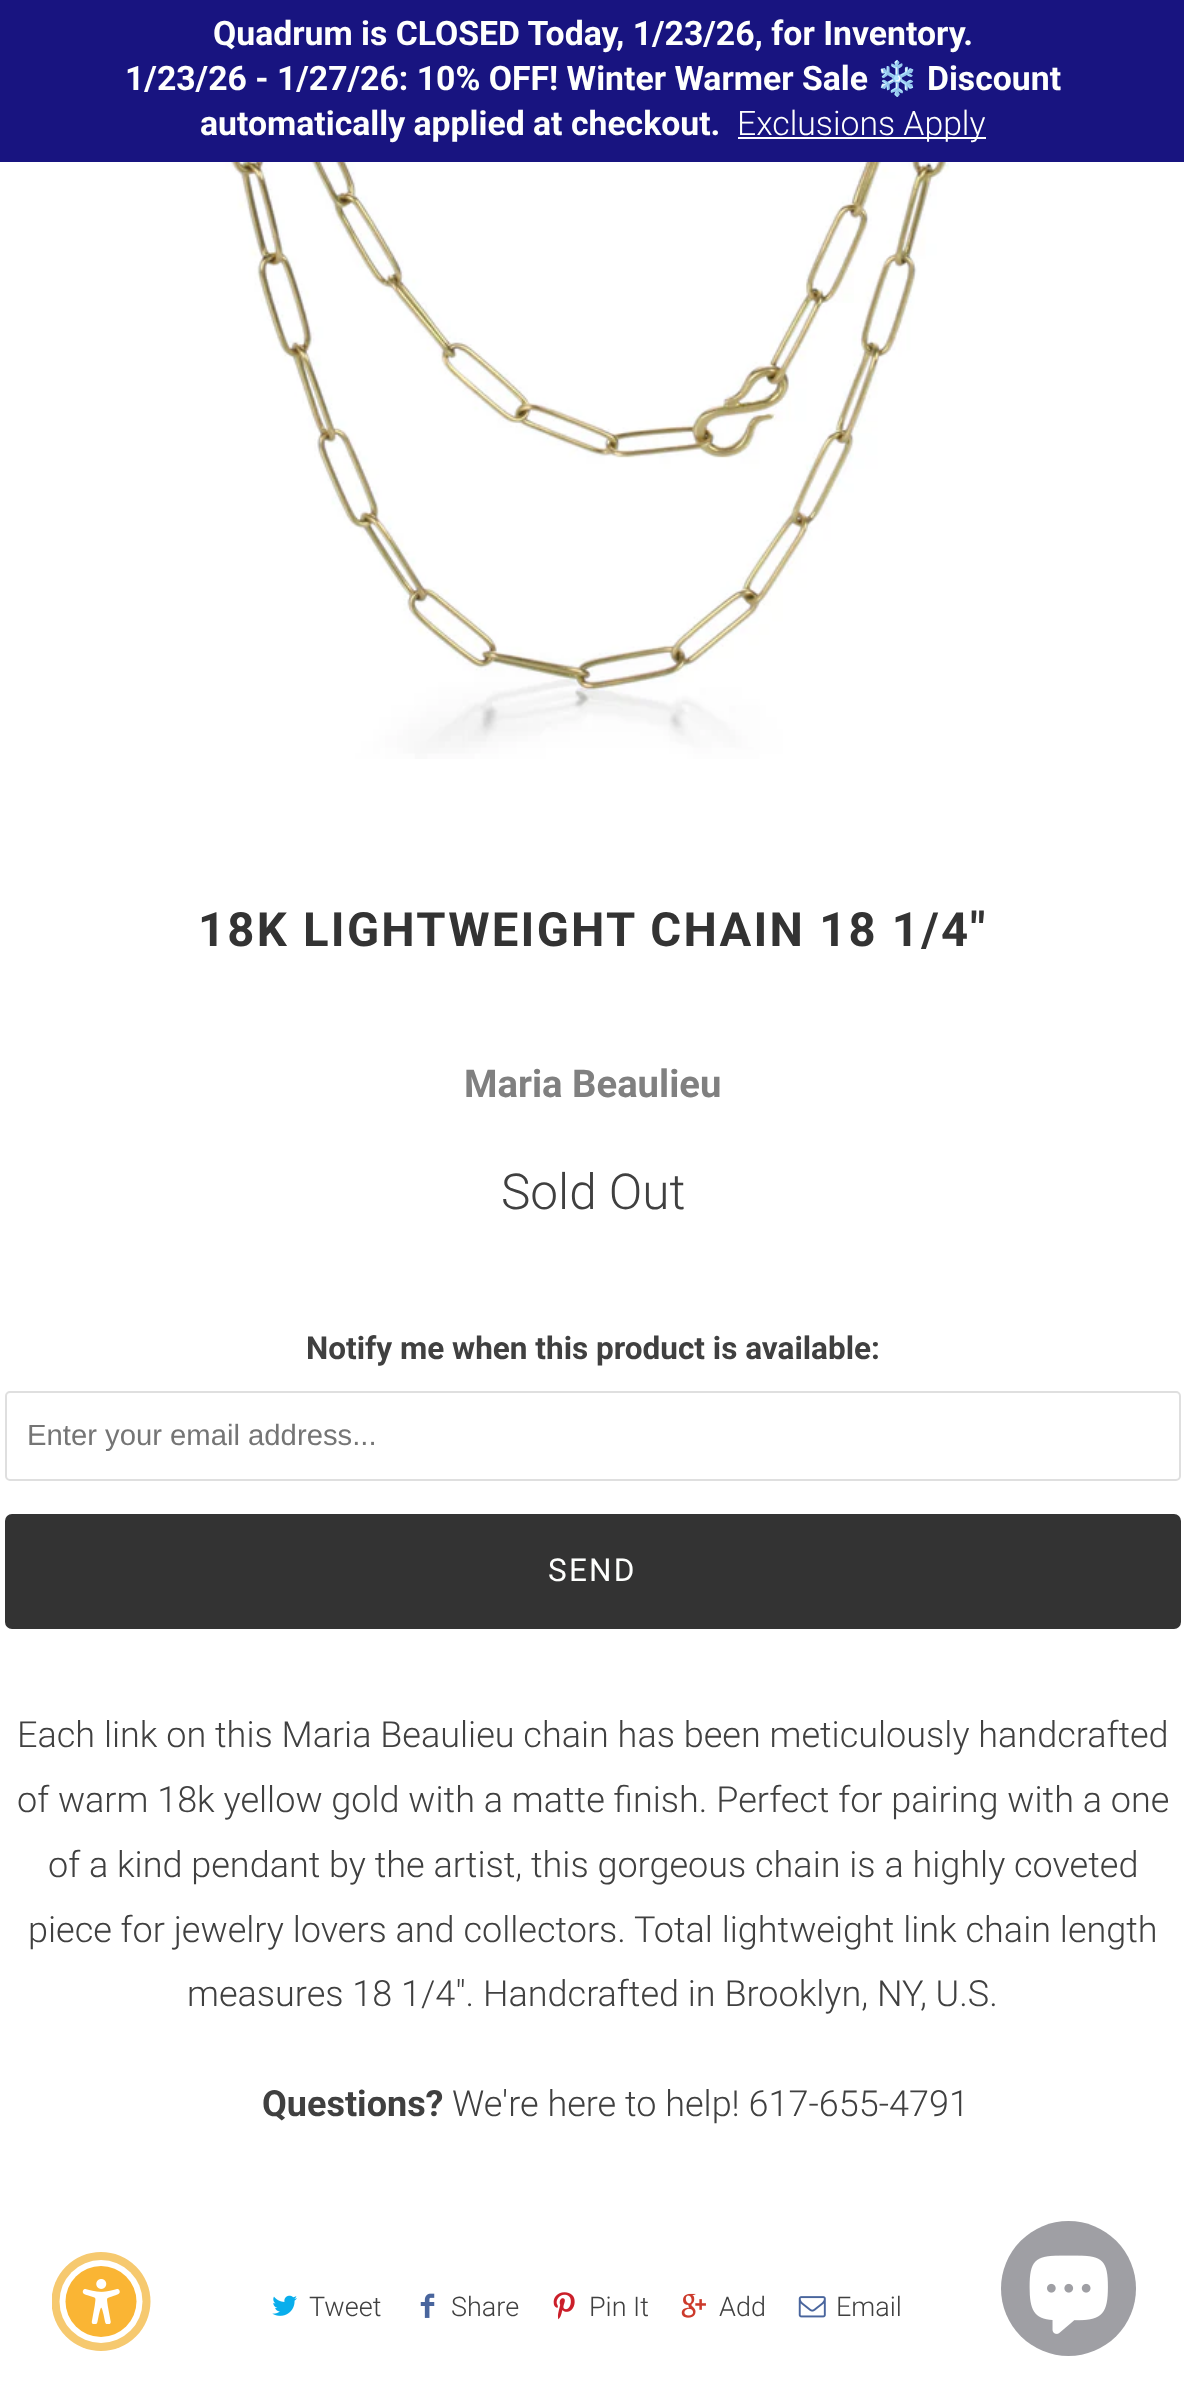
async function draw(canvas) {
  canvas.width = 1184;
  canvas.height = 2402;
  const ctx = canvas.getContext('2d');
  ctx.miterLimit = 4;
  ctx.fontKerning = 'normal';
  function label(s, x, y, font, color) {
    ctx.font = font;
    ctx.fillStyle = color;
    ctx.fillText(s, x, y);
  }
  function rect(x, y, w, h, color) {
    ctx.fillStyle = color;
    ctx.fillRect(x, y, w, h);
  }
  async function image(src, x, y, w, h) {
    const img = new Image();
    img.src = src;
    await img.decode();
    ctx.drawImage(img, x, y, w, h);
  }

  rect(0, 0, 1184, 2402, '#fff');
  rect(0, 0, 1184, 162, '#181480');
  label('Quadrum is CLOSED Today, 1/23/26, for Inventory.', 213, 45, 'bold 33.75px Roboto', '#fefffd');
  label('1/23/26 - 1/27/26: 10% OFF! Winter Warmer Sale', 125, 90, 'bold 33.75px Roboto', '#fefffd');
  label('❄️', 876, 90, '33.75px Noto Color Emoji', '#fefffd');
  label('Discount', 927, 90, 'bold 33.75px Roboto', '#fefffd');
  label('automatically applied at checkout.', 200, 135, 'bold 33.75px Roboto', '#fefffd');
  rect(738, 137, 248, 2, '#fff');
  label('Exclusions Apply', 737, 135, '300 33.75px Roboto', '#fefffd');
  await image('assets/img1.png', 202, 162, 770, 597);
  ctx.letterSpacing = '2.25px';
  label('18K LIGHTWEIGHT CHAIN 18 1/4"', 198, 946, 'bold 47.25px Roboto', '#333');
  ctx.letterSpacing = '0px';
  label('Maria Beaulieu', 464, 1097, 'bold 38.25px Roboto', '#808080');
  label('Sold Out', 501, 1209, '300 49.5px Roboto', '#404040');
  label('Notify me when this product is available:', 306, 1359, 'bold 31.5px Roboto', '#404040');
  ctx.beginPath();
  ctx.roundRect(6, 1392, 1174, 88, 4);
  ctx.strokeStyle = '#dfdfdf';
  ctx.lineWidth = 2;
  ctx.stroke();
  label('Enter your email address...', 27, 1445, '29.25px Liberation Sans', '#757575');
  ctx.fillStyle = '#333';
  ctx.beginPath();
  ctx.roundRect(6, 1515, 1174, 113, 6);
  ctx.fill();
  ctx.strokeStyle = '#333';
  ctx.stroke();
  ctx.letterSpacing = '2.25px';
  label('SEND', 548, 1581, '31.5px Roboto', '#fefffd');
  ctx.letterSpacing = '0px';
  label('Each link on this Maria Beaulieu chain has been meticulously handcrafted', 17, 1747, '300 36px Roboto', '#404040');
  label('of warm 18k yellow gold with a matte finish. Perfect for pairing with a one', 17, 1812, '300 36px Roboto', '#404040');
  label('of a kind pendant by the artist, this gorgeous chain is a highly coveted', 48, 1877, '300 36px Roboto', '#404040');
  label('piece for jewelry lovers and collectors. Total lightweight link chain length', 28, 1942, '300 36px Roboto', '#404040');
  label('measures 18 1/4". Handcrafted in Brooklyn, NY, U.S.', 187, 2006, '300 36px Roboto', '#404040');
  label('Questions?', 262, 2116, 'bold 36px Roboto', '#404040');
  label('We\'re here to help! 617-655-4791', 452, 2116, '300 36px Roboto', '#404040');
  await image('assets/img2.png', 272, 2295, 25, 21);
  label('Tweet', 309, 2316, '300 27px Roboto', '#404040');
  await image('assets/img3.png', 420, 2293, 15, 25);
  label('Share', 451, 2316, '300 27px Roboto', '#404040');
  await image('assets/img4.png', 553, 2292, 22, 28);
  label('Pin It', 589, 2316, '300 27px Roboto', '#404040');
  await image('assets/img5.png', 681, 2293, 25, 25);
  label('Add', 719, 2316, '300 27px Roboto', '#404040');
  await image('assets/img6.png', 798, 2296, 28, 22);
  label('Email', 836, 2316, '300 27px Roboto', '#404040');
  ctx.save();
  ctx.beginPath();
  ctx.rect(52, 2252, 101, 102);
  ctx.clip();
  ctx.fillStyle = '#f6c96f';
  ctx.beginPath();
  ctx.arc(101, 2301.5, 49.5, 0, 2 * Math.PI);
  ctx.fill();
  ctx.restore();
  ctx.fillStyle = '#fff';
  ctx.beginPath();
  ctx.arc(101, 2301.5, 41.5, 0, 2 * Math.PI);
  ctx.fill();
  ctx.fillStyle = '#fab534';
  ctx.beginPath();
  ctx.arc(101, 2301.5, 35.5, 0, 2 * Math.PI);
  ctx.fill();
  await image('assets/img7.png', 82, 2279, 38, 45);
  ctx.fillStyle = '#9f9fa4';
  ctx.beginPath();
  ctx.arc(1068.5, 2288.5, 67.5, 0, 2 * Math.PI);
  ctx.fill();
  await image('assets/img8.png', 1029, 2255, 79, 79);
}

draw(document.querySelector('canvas'));
